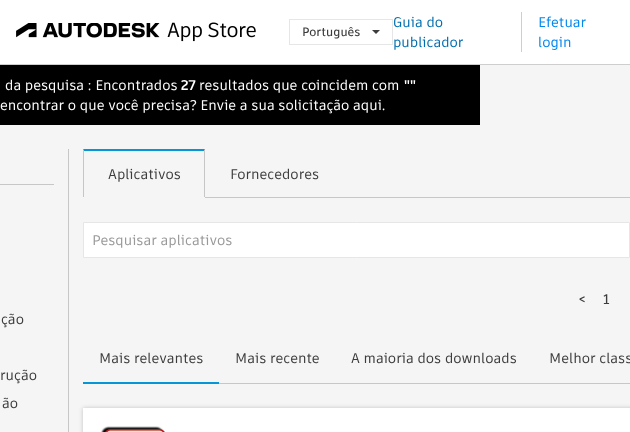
async function draw(canvas) {
  canvas.width = 630;
  canvas.height = 432;
  const ctx = canvas.getContext('2d');
  ctx.miterLimit = 4;
  ctx.fontKerning = 'normal';
  function label(s, x, y, font, color) {
    ctx.font = font;
    ctx.fillStyle = color;
    ctx.fillText(s, x, y);
  }
  function rect(x, y, w, h, color) {
    ctx.fillStyle = color;
    ctx.fillRect(x, y, w, h);
  }
  async function image(src, x, y, w, h) {
    const img = new Image();
    img.src = src;
    await img.decode();
    ctx.drawImage(img, x, y, w, h);
  }
  let path;

  rect(0, 0, 630, 432, '#f5f5f5');
  rect(0, 0, 630, 64, '#fff');
  rect(0, 64, 630, 1, '#cecece');
  await image('assets/img1.png', 16, 22, 240, 20);
  ctx.strokeStyle = '#e6e6e6';
  ctx.strokeRect(289.5, 19.5, 103, 25);
  label('Português', 302, 36, '600 12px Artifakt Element', '#3c3c3c');
  path = new Path2D('M372 30H380L376 34Z');
  ctx.fill(path);
  rect(521, 12, 1, 40, '#cecece');
  label('Guia do', 393, 27, '500 14px Artifakt Element', '#006eaf');
  label('publicador', 393, 47, '500 14px Artifakt Element', '#006eaf');
  label('Efetuar', 538, 27, '500 14px Artifakt Element', '#08e');
  label('login', 538, 47, '500 14px Artifakt Element', '#08e');
  rect(0, 65, 480, 60, '#000');
  label('da pesquisa : Encontrados', 5, 90, '500 14px Artifakt Element', '#fff');
  label('27', 181, 90, 'bold 14px Artifakt Element', '#fff');
  label('resultados que coincidem com', 199, 90, '500 14px Artifakt Element', '#fff');
  label('""', 404, 90, 'bold 14px Artifakt Element', '#fff');
  label('encontrar o que você precisa? Envie a sua solicitação aqui.', 0, 110, '500 14px Artifakt Element', '#fff');
  rect(0, 184, 54, 1, '#c7c7c7');
  label('ção', 1, 324, '500 14px Artifakt Element', '#3c3c3c');
  label('rução', 0, 380, '500 14px Artifakt Element', '#3c3c3c');
  label('ão', 2, 408, '500 14px Artifakt Element', '#3c3c3c');
  rect(68, 149, 1, 283, '#c7c7c7');
  rect(205, 197, 425, 1, '#c7c7c7');
  ctx.fillStyle = '#0696d7';
  path = new Path2D('M83 149H205L204 151H84Z');
  ctx.fill(path);
  ctx.fillStyle = '#c6c6c6';
  path = new Path2D('M205 149V197H204V151Z');
  ctx.fill(path);
  path = new Path2D('M83 197V149L84 151V197Z');
  ctx.fill(path);
  label('Aplicativos', 108, 179, '500 14px Artifakt Element', '#3c3c3c');
  label('Fornecedores', 230, 179, '500 14px Artifakt Element', '#3c3c3c');
  ctx.fillStyle = '#fff';
  ctx.beginPath();
  ctx.rect(83.5, 222.5, 546, 35);
  ctx.fill();
  ctx.stroke();
  label('Pesquisar aplicativos', 92, 245, '500 14px Artifakt Element', '#999');
  label('<', 578, 304, '600 14px Artifakt Element', '#3c3c3c');
  label('1', 603, 304, '600 14px Artifakt Element', '#3c3c3c');
  rect(219, 383, 411, 1, '#c7c7c7');
  rect(83, 382, 136, 2, '#0696d7');
  label('Mais relevantes', 99, 363, '500 14px Artifakt Element', '#3c3c3c');
  label('Mais recente', 235, 363, '500 14px Artifakt Element', '#3c3c3c');
  label('A maioria dos downloads', 351, 363, '500 14px Artifakt Element', '#3c3c3c');
  label('Melhor class', 549, 363, '500 14px Artifakt Element', '#3c3c3c');
  ctx.fillStyle = '#00000033';
  ctx.filter = 'blur(2px)';
  ctx.beginPath();
  ctx.rect(83, 408, 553, 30);
  ctx.fill();
  ctx.filter = 'none';
  rect(83, 408, 547, 24, '#fff');
  await image('assets/img2.png', 101, 426, 64, 6);
}

draw(document.querySelector('canvas'));
